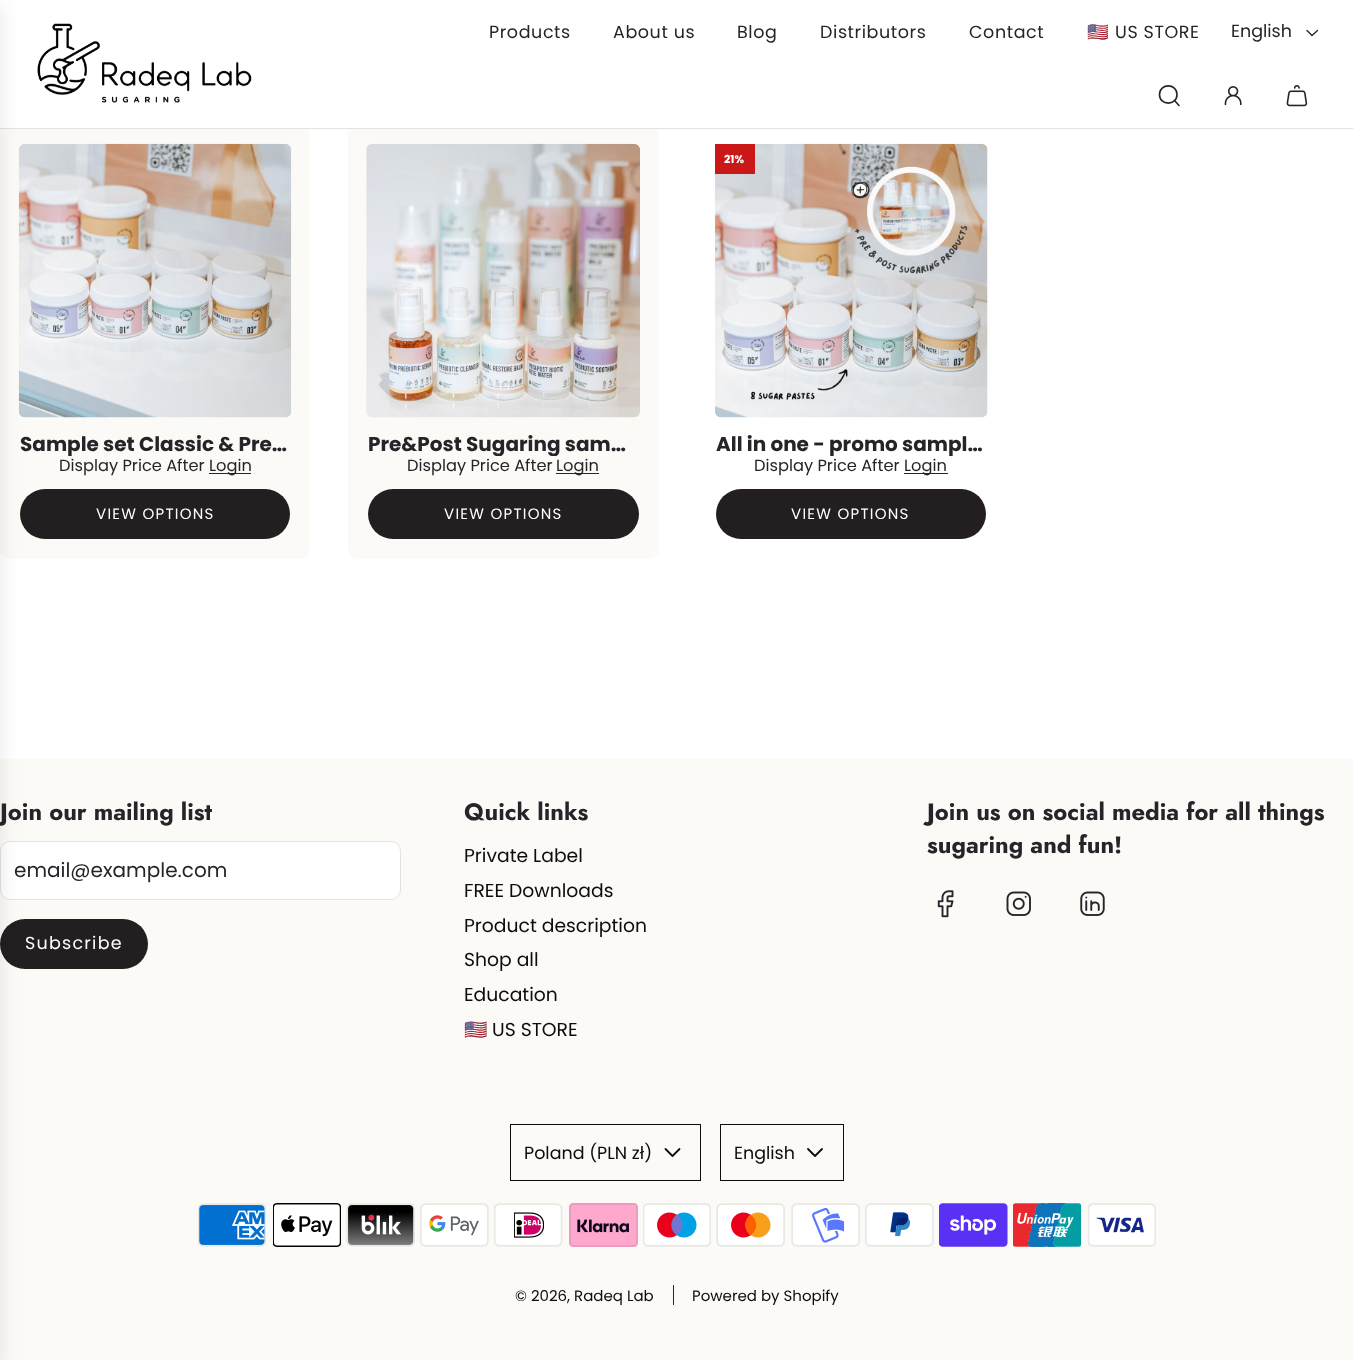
async function draw(canvas) {
  canvas.width = 1353;
  canvas.height = 1360;
  const ctx = canvas.getContext('2d');
  ctx.miterLimit = 4;
  ctx.fontKerning = 'normal';
  function label(s, x, y, font, color) {
    ctx.font = font;
    ctx.fillStyle = color;
    ctx.fillText(s, x, y);
  }
  function rect(x, y, w, h, color) {
    ctx.fillStyle = color;
    ctx.fillRect(x, y, w, h);
  }
  function roundedRect(x, y, w, h, r, color) {
    ctx.fillStyle = color;
    ctx.beginPath();
    ctx.roundRect(x, y, w, h, r);
    ctx.fill();
  }
  async function image(src, x, y, w, h) {
    const img = new Image();
    img.src = src;
    await img.decode();
    ctx.drawImage(img, x, y, w, h);
  }
  let path;

  rect(0, 0, 1353, 1360, '#fff');
  roundedRect(0, 125, 310, 434, 10, '#fcfaf7');
  roundedRect(348, 125, 311, 434, 10, '#fcfaf7');
  rect(3, 125, 653, 3, '#fff');
  rect(0, 128, 1353, 1, '#e4e2de');
  await image('assets/img4.png', 18, 143, 274, 275);
  roundedRect(20, 489, 270, 50, 25, '#231f20');
  rect(0, 759, 1353, 601, '#fcfaf7');
  ctx.fillStyle = '#fff';
  ctx.beginPath();
  ctx.roundRect(0.5, 841.5, 400, 58, 9.5);
  ctx.fill();
  ctx.strokeStyle = '#e4e2de';
  ctx.stroke();
  roundedRect(0, 919, 148, 50, 25, '#231f20');
  ctx.fillStyle = '#0000001a';
  ctx.filter = 'blur(9.5px)';
  ctx.beginPath();
  ctx.rect(-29, 6, 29, 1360);
  ctx.fill();
  ctx.filter = 'none';
  await image('assets/img1.png', 37, 23, 215, 80);
  ctx.letterSpacing = '0.6px';
  label('Products', 489, 38, '17.5px Poppins', '#262428');
  label('About us', 613, 38, '17.5px Poppins', '#262428');
  label('Blog', 737, 38, '17.5px Poppins', '#262428');
  label('Distributors', 820, 38, '17.5px Poppins', '#262428');
  label('Contact', 969, 38, '17.5px Poppins', '#262428');
  label('🇺🇲', 1087, 38, '17.5px Noto Color Emoji', '#262428');
  label('US STORE', 1115, 38, '17.5px Poppins', '#262428');
  ctx.letterSpacing = '0px';
  label('English', 1231, 37, '17.5px Poppins', '#262428');
  path = new Path2D('M1307 30.5L1312 35.5L1317.5 30.5');
  ctx.strokeStyle = '#262428';
  ctx.lineWidth = 1.3;
  ctx.lineCap = 'round';
  ctx.lineJoin = 'round';
  ctx.stroke(path);
  path = new Path2D('M1175 101L1179 105.5M1159.5 94.5C1159.5 106 1177 106 1177 94.5C1177 83 1159.5 83 1159.5 94.5Z');
  ctx.lineWidth = 1.6;
  ctx.stroke(path);
  await image('assets/img2.png', 1224, 86, 18, 20);
  await image('assets/img3.png', 1286, 85, 22, 22);
  ctx.save();
  ctx.beginPath();
  ctx.rect(0, 434, 310, 22);
  ctx.clip();
  label('Sample set Classic & Pre…', 20, 451, 'bold 20px Poppins', '#262428');
  ctx.restore();
  label('Display Price After', 59, 471, '16.25px Poppins', '#262428');
  rect(209, 473, 42, 1, '#262428');
  label('Login', 209, 471, '16.25px Poppins', '#262428');
  ctx.letterSpacing = '1.25px';
  label('VIEW OPTIONS', 96, 519, '15px Poppins', '#fff');
  await image('assets/img5.png', 366, 143, 274, 275);
  ctx.save();
  ctx.beginPath();
  ctx.rect(348, 434, 311, 22);
  ctx.clip();
  ctx.letterSpacing = '0px';
  label('Pre&Post Sugaring sam…', 368, 451, 'bold 20px Poppins', '#262428');
  ctx.restore();
  ctx.letterSpacing = '0px';
  label('Display Price After', 407, 471, '16.25px Poppins', '#262428');
  rect(556, 473, 43, 1, '#262428');
  label('Login', 556, 471, '16.25px Poppins', '#262428');
  roundedRect(368, 489, 271, 50, 25, '#231f20');
  ctx.letterSpacing = '1.25px';
  label('VIEW OPTIONS', 444, 519, '15px Poppins', '#fff');
  await image('assets/img6.png', 715, 143, 273, 275);
  rect(715, 144, 40, 30, '#ca1818');
  ctx.letterSpacing = '0px';
  label('21%', 724, 163, 'bold 11px Poppins', '#fff');
  ctx.save();
  ctx.beginPath();
  ctx.rect(696, 434, 310, 22);
  ctx.clip();
  label('All in one - promo sampl…', 716, 451, 'bold 20px Poppins', '#262428');
  ctx.restore();
  label('Display Price After', 754, 471, '16.25px Poppins', '#262428');
  rect(904, 473, 44, 1, '#262428');
  label('Login', 904, 471, '16.25px Poppins', '#262428');
  roundedRect(716, 489, 270, 50, 25, '#231f20');
  ctx.letterSpacing = '1.25px';
  label('VIEW OPTIONS', 791, 519, '15px Poppins', '#fff');
  ctx.letterSpacing = '0px';
  label('Join our mailing list', 0, 820, 'bold 23.75px Jost', '#262428');
  label('email@example.com', 14, 877, '20px Poppins', '#262428');
  ctx.letterSpacing = '1.25px';
  label('Subscribe', 25, 949, '17.5px Poppins', '#fff');
  ctx.letterSpacing = '0px';
  label('Quick links', 464, 820, 'bold 23.75px Jost', '#262428');
  label('Private Label', 464, 862, '18.75px Poppins', '#0d0c0d');
  label('FREE Downloads', 464, 897, '18.75px Poppins', '#0d0c0d');
  label('Product description', 464, 932, '18.75px Poppins', '#0d0c0d');
  label('Shop all', 464, 966, '18.75px Poppins', '#0d0c0d');
  label('Education', 464, 1001, '18.75px Poppins', '#0d0c0d');
  label('🇺🇲', 464, 1036, '18.75px Noto Color Emoji', '#0d0c0d');
  label('US STORE', 492, 1036, '18.75px Poppins', '#0d0c0d');
  label('Join us on social media for all things', 927, 820, 'bold 23.75px Jost', '#262428');
  label('sugaring and fun!', 927, 853, 'bold 23.75px Jost', '#262428');
  await image('assets/img7.png', 937, 890, 17, 28);
  await image('assets/img8.png', 1006, 891, 25, 25);
  await image('assets/img9.png', 1080, 891, 25, 25);
  ctx.strokeStyle = '#0d0c0d';
  ctx.lineWidth = 1;
  ctx.lineJoin = 'miter';
  ctx.strokeRect(510.5, 1124.5, 190, 56);
  label('Poland (PLN zł)', 524, 1159, '17.5px Poppins', '#0d0c0d');
  path = new Path2D('M665.5 1149L672.5 1156L679.5 1149');
  ctx.lineWidth = 1.8;
  ctx.lineJoin = 'round';
  ctx.stroke(path);
  ctx.lineWidth = 1;
  ctx.lineJoin = 'miter';
  ctx.strokeRect(720.5, 1124.5, 123, 56);
  label('English', 734, 1159, '17.5px Poppins', '#0d0c0d');
  path = new Path2D('M808 1149L815 1156L822 1149');
  ctx.lineWidth = 1.8;
  ctx.lineJoin = 'round';
  ctx.stroke(path);
  await image('assets/img10.png', 198, 1203, 68, 44);
  await image('assets/img11.png', 273, 1203, 68, 44);
  await image('assets/img12.png', 346, 1203, 69, 44);
  await image('assets/img13.png', 420, 1203, 69, 44);
  await image('assets/img14.png', 494, 1203, 69, 44);
  await image('assets/img15.png', 569, 1203, 69, 44);
  await image('assets/img16.png', 643, 1203, 68, 44);
  await image('assets/img17.png', 716, 1203, 69, 44);
  await image('assets/img18.png', 791, 1203, 69, 44);
  await image('assets/img19.png', 865, 1203, 69, 44);
  await image('assets/img20.png', 939, 1203, 69, 44);
  await image('assets/img21.png', 1013, 1203, 68, 44);
  await image('assets/img22.png', 1088, 1203, 68, 44);
  label('© 2026, Radeq Lab', 515, 1301, '15px Poppins', '#0d0c0d');
  rect(673, 1285, 1, 20, '#262428');
  label('Powered by Shopify', 692, 1301, '15px Poppins', '#0d0c0d');
}

draw(document.querySelector('canvas'));
